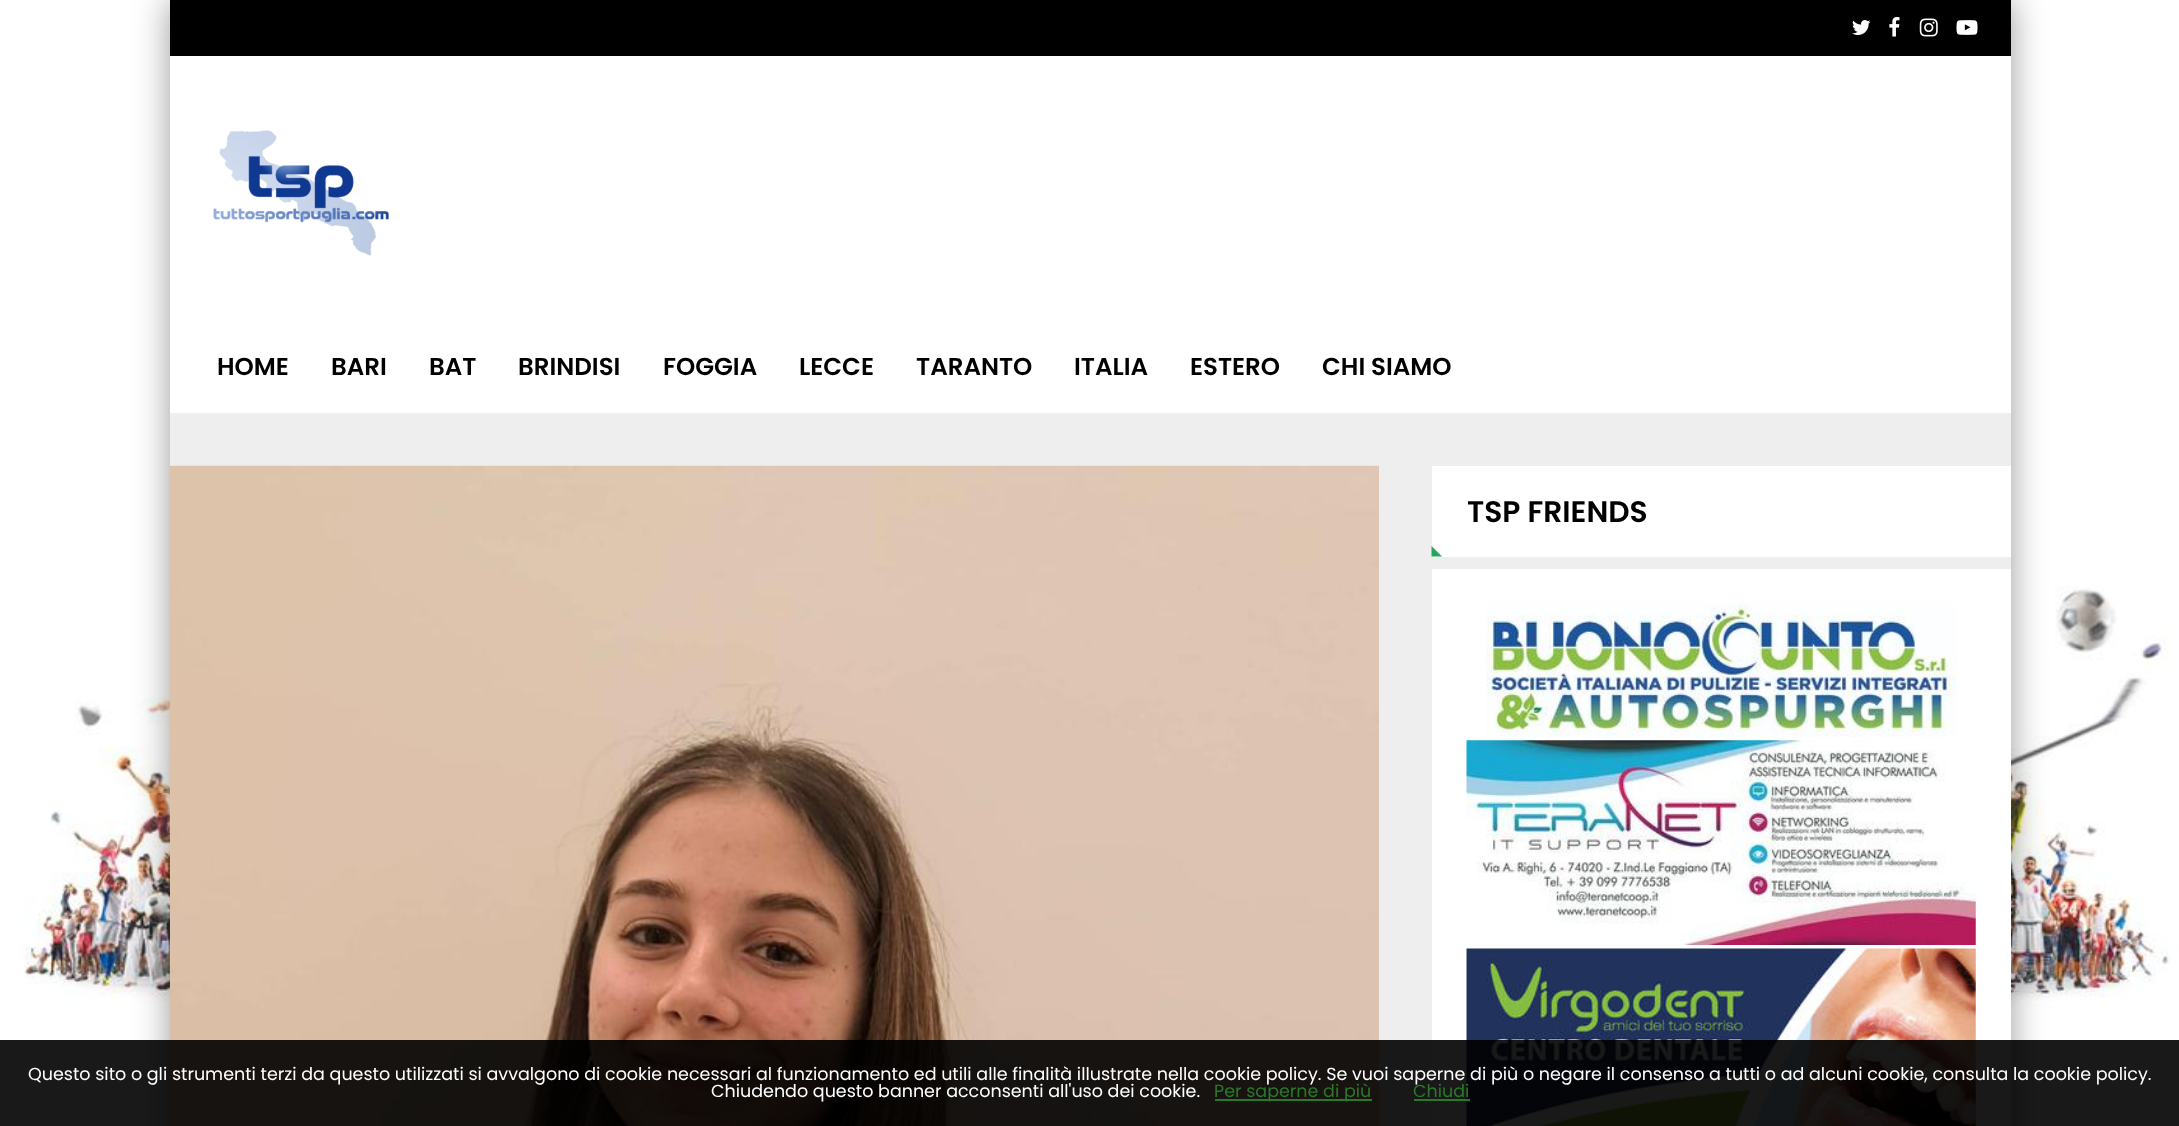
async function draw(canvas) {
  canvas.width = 2179;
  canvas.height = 1126;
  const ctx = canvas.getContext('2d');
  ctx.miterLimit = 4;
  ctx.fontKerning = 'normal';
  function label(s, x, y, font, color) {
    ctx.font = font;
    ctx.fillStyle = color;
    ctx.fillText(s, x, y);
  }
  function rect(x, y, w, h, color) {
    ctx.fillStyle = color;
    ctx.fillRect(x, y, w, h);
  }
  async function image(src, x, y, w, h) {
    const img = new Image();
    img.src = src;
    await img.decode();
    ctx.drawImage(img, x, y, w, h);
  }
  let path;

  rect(0, 0, 2179, 1126, '#fff');
  await image('assets/img1.png', 0, 0, 2179, 1126);
  ctx.fillStyle = '#00000066';
  ctx.filter = 'blur(17.5px)';
  ctx.beginPath();
  ctx.rect(170, 0, 1841, 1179);
  ctx.fill();
  ctx.filter = 'none';
  rect(170, 413, 1841, 713, '#eee');
  rect(170, 0, 1841, 56, '#000');
  await image('assets/img2.png', 1852, 20, 19, 15);
  await image('assets/img3.png', 1889, 17, 11, 20);
  await image('assets/img4.png', 1919, 18, 19, 19);
  await image('assets/img5.png', 1956, 20, 22, 15);
  rect(170, 56, 1841, 357, '#fff');
  await image('assets/img6.png', 213, 130, 176, 126);
  label('HOME', 217, 375, '600 24.5px Poppins', '#000');
  label('BARI', 331, 375, '600 24.5px Poppins', '#000');
  label('BAT', 429, 375, '600 24.5px Poppins', '#000');
  label('BRINDISI', 518, 375, '600 24.5px Poppins', '#000');
  label('FOGGIA', 663, 375, '600 24.5px Poppins', '#000');
  label('LECCE', 799, 375, '600 24.5px Poppins', '#000');
  label('TARANTO', 916, 375, '600 24.5px Poppins', '#000');
  label('ITALIA', 1074, 375, '600 24.5px Poppins', '#000');
  label('ESTERO', 1190, 375, '600 24.5px Poppins', '#000');
  label('CHI SIAMO', 1322, 375, '600 24.5px Poppins', '#000');
  await image('assets/img7.png', 169, 465, 1210, 661);
  rect(1432, 466, 579, 91, '#fff');
  label('TSP FRIENDS', 1467, 522, '600 29.75px Poppins', '#000');
  ctx.fillStyle = '#26a65b';
  path = new Path2D('M1442 556.5H1431.5V546Z');
  ctx.fill(path);
  rect(1432, 569, 579, 557, '#fff');
  await image('assets/img8.png', 1486, 602, 471, 135);
  await image('assets/img9.png', 1466, 740, 510, 205);
  await image('assets/img10.png', 1466, 948, 510, 178);
  rect(0, 1040, 2179, 86, '#000000e6');
  label('Questo sito o gli strumenti terzi da questo utilizzati si avvalgono di cookie necessari al funzionamento ed utili alle finalità illustrate nella cookie policy. Se vuoi saperne di più o negare il consenso a tutti o ad alcuni cookie, consulta la cookie policy.', 28, 1080, '17.5px Poppins', '#fff');
  label('Chiudendo questo banner acconsenti all\'uso dei cookie.', 711, 1097, '17.5px Poppins', '#fff');
  rect(1215, 1099, 157, 2, '#2b7829');
  label('Per saperne di più', 1214, 1097, '17.5px Poppins', '#2b7829');
  label('Chiudi', 1413, 1097, '17.5px Poppins', '#2b7829');
  rect(1414, 1099, 56, 2, '#2b7829');
}

draw(document.querySelector('canvas'));
